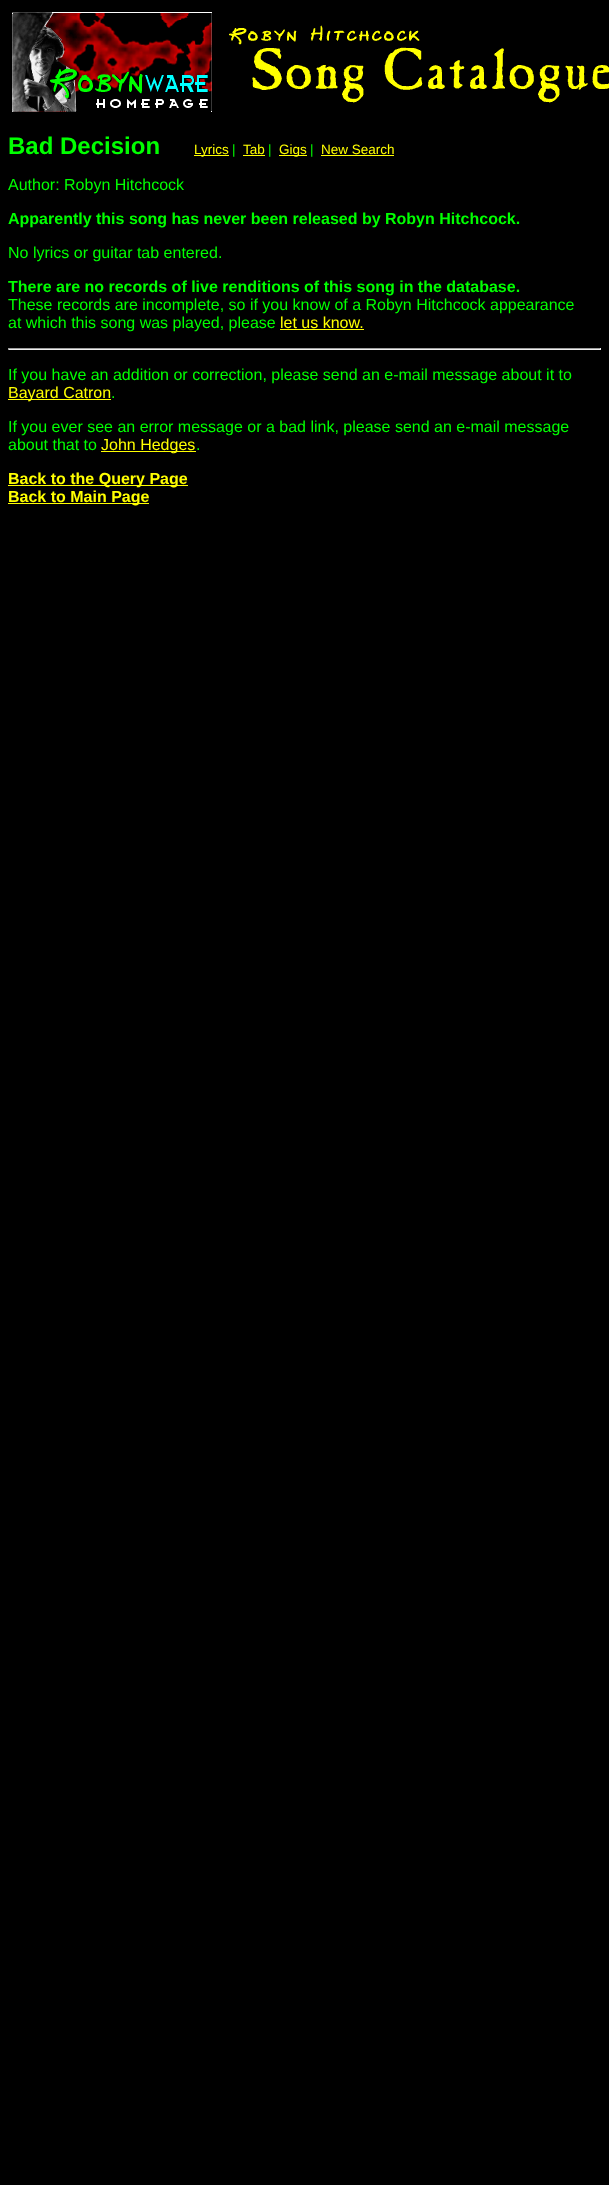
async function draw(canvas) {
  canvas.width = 609;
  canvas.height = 2185;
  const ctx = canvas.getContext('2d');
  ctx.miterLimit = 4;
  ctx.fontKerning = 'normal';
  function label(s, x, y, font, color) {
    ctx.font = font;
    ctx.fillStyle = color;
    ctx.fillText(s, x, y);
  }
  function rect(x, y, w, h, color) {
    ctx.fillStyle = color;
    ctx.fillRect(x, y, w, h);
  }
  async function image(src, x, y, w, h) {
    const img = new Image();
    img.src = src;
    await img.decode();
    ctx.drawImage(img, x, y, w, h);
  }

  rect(0, 0, 609, 2185, '#000');
  await image('assets/img1.png', 12, 12, 200, 100);
  await image('assets/img2.png', 229, 25, 380, 78);
  label('Bad Decision', 8, 154, 'bold 24px Liberation Sans', '#0f0');
  rect(194, 155, 35, 1, '#ff0');
  label('Lyrics', 194, 154, '13.5px Liberation Sans', '#ff0');
  label('|', 232, 154, '13.5px Liberation Sans', '#0f0');
  label('Tab', 243, 154, '13.5px Liberation Sans', '#ff0');
  rect(243, 155, 22, 1, '#ff0');
  label('|', 268, 154, '13.5px Liberation Sans', '#0f0');
  rect(279, 155, 28, 1, '#ff0');
  label('Gigs', 279, 154, '13.5px Liberation Sans', '#ff0');
  label('|', 310, 154, '13.5px Liberation Sans', '#0f0');
  label('New Search', 321, 154, '13.5px Liberation Sans', '#ff0');
  rect(321, 155, 73, 1, '#ff0');
  label('Author: Robyn Hitchcock', 8, 190, '16px Liberation Sans', '#0f0');
  label('Apparently this song has never been released by Robyn Hitchcock.', 8, 224, 'bold 16px Liberation Sans', '#0f0');
  label('No lyrics or guitar tab entered.', 8, 258, '16px Liberation Sans', '#0f0');
  label('There are no records of live renditions of this song in the database.', 8, 292, 'bold 16px Liberation Sans', '#0f0');
  label('These records are incomplete, so if you know of a Robyn Hitchcock appearance', 8, 310, '16px Liberation Sans', '#0f0');
  label('at which this song was played, please', 8, 328, '16px Liberation Sans', '#0f0');
  label('let us know.', 280, 328, '16px Liberation Sans', '#ff0');
  rect(280, 329, 84, 1, '#ff0');
  rect(8, 348, 593, 1, '#9f9f9f');
  rect(600, 348, 1, 2, '#eee');
  rect(8, 349, 593, 1, '#eee');
  rect(8, 348, 1, 2, '#9f9f9f');
  label('If you have an addition or correction, please send an e-mail message about it to', 8, 380, '16px Liberation Sans', '#0f0');
  rect(8, 399, 103, 1, '#ff0');
  label('Bayard Catron', 8, 398, '16px Liberation Sans', '#ff0');
  label('.', 111, 398, '16px Liberation Sans', '#0f0');
  label('If you ever see an error message or a bad link, please send an e-mail message', 8, 432, '16px Liberation Sans', '#0f0');
  label('about that to', 8, 450, '16px Liberation Sans', '#0f0');
  rect(101, 451, 95, 1, '#ff0');
  label('John Hedges', 101, 450, '16px Liberation Sans', '#ff0');
  label('.', 196, 450, '16px Liberation Sans', '#0f0');
  rect(8, 485, 180, 1, '#ff0');
  label('Back to the Query Page', 8, 484, 'bold 16px Liberation Sans', '#ff0');
  rect(8, 503, 141, 1, '#ff0');
  label('Back to Main Page', 8, 502, 'bold 16px Liberation Sans', '#ff0');
}

draw(document.querySelector('canvas'));
